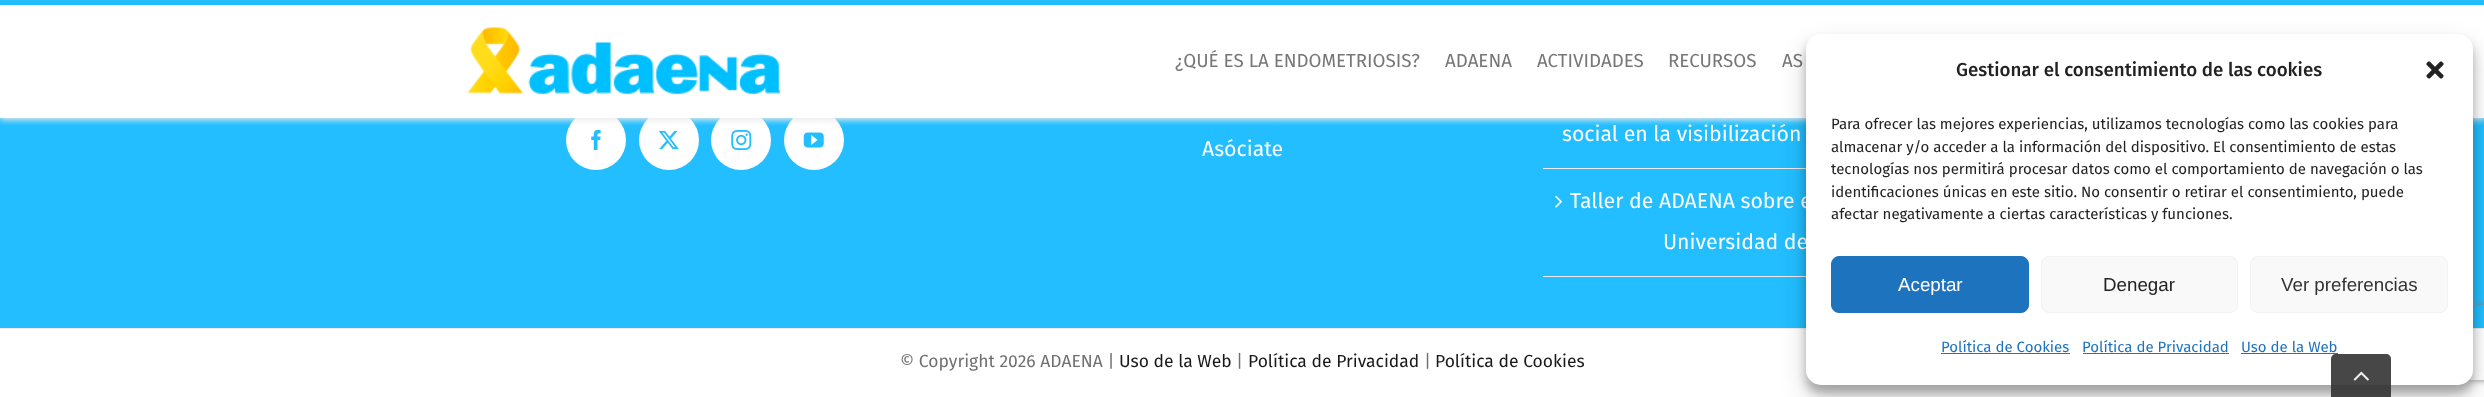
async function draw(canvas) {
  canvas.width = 2484;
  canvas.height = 397;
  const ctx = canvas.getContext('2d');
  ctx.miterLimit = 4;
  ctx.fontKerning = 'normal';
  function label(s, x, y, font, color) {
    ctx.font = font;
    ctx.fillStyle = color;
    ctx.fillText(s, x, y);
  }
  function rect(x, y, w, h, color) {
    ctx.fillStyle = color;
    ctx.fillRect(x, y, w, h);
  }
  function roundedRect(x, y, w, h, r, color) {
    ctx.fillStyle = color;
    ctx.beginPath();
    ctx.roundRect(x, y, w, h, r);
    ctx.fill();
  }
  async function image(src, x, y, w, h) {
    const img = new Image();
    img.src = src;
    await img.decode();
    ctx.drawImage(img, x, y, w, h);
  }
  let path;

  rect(0, 0, 2484, 397, '#fff');
  rect(0, 0, 2484, 328, '#22beff');
  ctx.fillStyle = '#fff';
  ctx.beginPath();
  ctx.arc(596, 140, 30, 0, 2 * Math.PI);
  ctx.fill();
  ctx.beginPath();
  ctx.arc(669, 140, 30, 0, 2 * Math.PI);
  ctx.fill();
  ctx.beginPath();
  ctx.arc(741, 140, 30, 0, 2 * Math.PI);
  ctx.fill();
  ctx.beginPath();
  ctx.arc(814, 140, 30, 0, 2 * Math.PI);
  ctx.fill();
  ctx.save();
  ctx.beginPath();
  ctx.rect(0, 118, 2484, 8);
  ctx.clip();
  ctx.fillStyle = '#eaeaea';
  ctx.filter = 'blur(3px)';
  ctx.beginPath();
  ctx.rect(0, 3, 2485, 117);
  ctx.fill();
  ctx.filter = 'none';
  ctx.restore();
  rect(0, 5, 2484, 113, '#fff');
  await image('assets/img1.png', 467, 27, 313, 67);
  label('¿QUÉ ES LA ENDOMETRIOSIS?', 1175, 67, '18.75px Fira Sans', '#777');
  label('ADAENA', 1445, 67, '18.75px Fira Sans', '#777');
  label('ACTIVIDADES', 1537, 67, '18.75px Fira Sans', '#777');
  label('RECURSOS', 1668, 67, '18.75px Fira Sans', '#777');
  label('AS', 1782, 67, '18.75px Fira Sans', '#777');
  await image('assets/img2.png', 591, 130, 10, 20);
  await image('assets/img3.png', 658, 130, 21, 20);
  await image('assets/img4.png', 731, 130, 21, 20);
  await image('assets/img5.png', 803, 132, 21, 16);
  label('Asóciate', 1202, 156, '21.25px Fira Sans', '#fff');
  rect(1543, 168, 263, 1, '#eaeaea');
  label('social en la visibilización', 1562, 141, '21.25px Fira Sans', '#fff');
  rect(1543, 276, 263, 1, '#eaeaea');
  await image('assets/img6.png', 1555, 195, 7, 13);
  label('Taller de ADAENA sobre e', 1570, 208, '21.25px Fira Sans', '#fff');
  label('Universidad de', 1663, 249, '21.25px Fira Sans', '#fff');
  rect(0, 328, 2484, 1, '#ebebeb');
  label('© Copyright 2026 ADAENA |', 900, 367, '17.5px Fira Sans', '#707070');
  label('Uso de la Web', 1119, 367, '17.5px Fira Sans', '#191919');
  label('|', 1236, 367, '17.5px Fira Sans', '#707070');
  label('Política de Privacidad', 1248, 367, '17.5px Fira Sans', '#191919');
  label('|', 1424, 367, '17.5px Fira Sans', '#707070');
  label('Política de Cookies', 1435, 367, '17.5px Fira Sans', '#191919');
  ctx.fillStyle = '#0000003b';
  ctx.filter = 'blur(4px)';
  ctx.beginPath();
  ctx.roundRect(1806, 41, 667, 352, 15);
  ctx.fill();
  ctx.filter = 'none';
  ctx.fillStyle = '#00000030';
  ctx.filter = 'blur(12.5px)';
  ctx.beginPath();
  ctx.roundRect(1806, 46, 667, 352, 15);
  ctx.fill();
  ctx.filter = 'none';
  ctx.save();
  path = new Path2D('M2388 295H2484V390H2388ZM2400.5 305H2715.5C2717 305 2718 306 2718 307.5V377.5C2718 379 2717 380 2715.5 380H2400.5C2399 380 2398 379 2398 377.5V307.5C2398 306 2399 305 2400.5 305Z');
  ctx.clip(path, 'evenodd');
  ctx.fillStyle = '#808080';
  ctx.filter = 'blur(3px)';
  ctx.beginPath();
  ctx.roundRect(2398, 305, 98, 75, 2.5);
  ctx.fill();
  ctx.filter = 'none';
  ctx.restore();
  roundedRect(1806, 34, 667, 351, 15, '#fff');
  label('Gestionar el consentimiento de las cookies', 1956, 76, '500 18.75px Fira Sans', '#222');
  await image('assets/img7.png', 2426, 61, 18, 18);
  label('Para ofrecer las mejores experiencias, utilizamos tecnologías como las cookies para', 1831, 129, '15px Fira Sans', '#222');
  label('almacenar y/o acceder a la información del dispositivo. El consentimiento de estas', 1831, 152, '15px Fira Sans', '#222');
  label('tecnologías nos permitirá procesar datos como el comportamiento de navegación o las', 1831, 174, '15px Fira Sans', '#222');
  label('identificaciones únicas en este sitio. No consentir o retirar el consentimiento, puede', 1831, 197, '15px Fira Sans', '#222');
  label('afectar negativamente a ciertas características y funciones.', 1831, 219, '15px Fira Sans', '#222');
  ctx.fillStyle = '#1e73be';
  ctx.beginPath();
  ctx.roundRect(1831.5, 256.5, 197, 56, 7.5);
  ctx.fill();
  ctx.strokeStyle = '#1e73be';
  ctx.stroke();
  label('Aceptar', 1898, 291, '18.75px Liberation Sans', '#fff');
  ctx.fillStyle = '#f9f9f9';
  ctx.beginPath();
  ctx.roundRect(2041.5, 256.5, 196, 56, 7.5);
  ctx.fill();
  ctx.strokeStyle = '#f2f2f2';
  ctx.stroke();
  label('Denegar', 2103, 291, '18.75px Liberation Sans', '#222');
  ctx.fillStyle = '#f9f9f9';
  ctx.beginPath();
  ctx.roundRect(2250.5, 256.5, 197, 56, 7.5);
  ctx.fill();
  ctx.stroke();
  label('Ver preferencias', 2281, 291, '18.75px Liberation Sans', '#333');
  label('Política de Cookies', 1941, 352, '15px Fira Sans', '#1e73be');
  rect(1941, 353, 129, 1, '#1e73be');
  label('Política de Privacidad', 2082, 352, '15px Fira Sans', '#1e73be');
  rect(2083, 353, 146, 1, '#1e73be');
  label('Uso de la Web', 2241, 352, '15px Fira Sans', '#1e73be');
  rect(2241, 353, 97, 1, '#1e73be');
  ctx.fillStyle = '#333333e6';
  path = new Path2D('M2336 354H2386C2389 354 2391 356 2391 359V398H2331V359C2331 356 2333 354 2336 354Z');
  ctx.fill(path);
  await image('assets/img8.png', 2353, 371, 16, 10);
}

draw(document.querySelector('canvas'));
